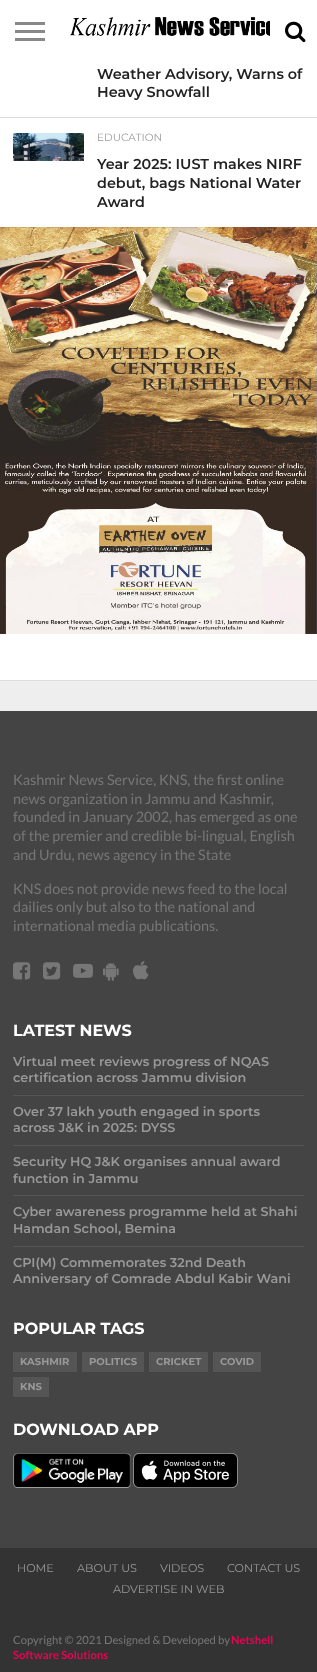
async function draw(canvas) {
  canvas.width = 317;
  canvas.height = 1672;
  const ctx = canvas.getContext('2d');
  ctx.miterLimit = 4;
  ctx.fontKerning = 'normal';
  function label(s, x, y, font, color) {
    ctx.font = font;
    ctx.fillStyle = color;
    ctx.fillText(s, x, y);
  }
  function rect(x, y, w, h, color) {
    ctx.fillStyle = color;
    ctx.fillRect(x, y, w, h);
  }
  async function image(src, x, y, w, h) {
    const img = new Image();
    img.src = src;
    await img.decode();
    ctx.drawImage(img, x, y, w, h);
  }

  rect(0, 0, 317, 1672, '#eee');
  rect(0, 0, 317, 680, '#fff');
  rect(15, 22, 30, 3, '#888');
  rect(15, 30, 30, 3, '#888');
  rect(15, 38, 30, 3, '#888');
  await image('assets/img1.png', 70, 17, 200, 19);
  await image('assets/img2.png', 285, 21, 21, 22);
  rect(0, 680, 317, 1, '#ddd');
  label('Weather Advisory, Warns of', 97, 79, '600 14.4px Montserrat', '#222');
  label('Heavy Snowfall', 97, 97, '600 14.4px Montserrat', '#222');
  rect(0, 117, 317, 1, '#ddd');
  await image('assets/img3.png', 13, 133, 71, 28);
  label('EDUCATION', 97, 141, '10.5px Montserrat', '#999');
  label('Year 2025: IUST makes NIRF', 97, 169, '600 14.4px Montserrat', '#222');
  label('debut, bags National Water', 97, 188, '600 14.4px Montserrat', '#222');
  label('Award', 97, 207, '600 14.4px Montserrat', '#222');
  await image('assets/img4.png', 0, 227, 317, 407);
  rect(0, 711, 317, 837, '#444');
  label('Kashmir News Service, KNS, the first online', 13, 785, '14.4px Lato', '#777');
  label('news organization in Jammu and Kashmir,', 13, 804, '14.4px Lato', '#777');
  label('founded in January 2002, has emerged as one', 13, 822, '14.4px Lato', '#777');
  label('of the premier and credible bi-lingual, English', 13, 841, '14.4px Lato', '#777');
  label('and Urdu, news agency in the State', 13, 860, '14.4px Lato', '#777');
  label('KNS does not provide news feed to the local', 13, 894, '14.4px Lato', '#777');
  label('dailies only but also to the national and', 13, 912, '14.4px Lato', '#777');
  label('international media publications.', 13, 931, '14.4px Lato', '#777');
  await image('assets/img5.png', 13, 962, 18, 18);
  await image('assets/img6.png', 43, 962, 18, 18);
  await image('assets/img7.png', 73, 963, 20, 15);
  await image('assets/img8.png', 103, 962, 16, 19);
  await image('assets/img9.png', 133, 961, 16, 19);
  label('LATEST NEWS', 13, 1036, 'bold 16px Montserrat', '#fff');
  label('Virtual meet reviews progress of NQAS', 13, 1066, '600 12.8px Montserrat', '#999');
  label('certification across Jammu division', 13, 1082, '600 12.8px Montserrat', '#999');
  rect(13, 1095, 291, 1, '#555');
  label('Over 37 lakh youth engaged in sports', 13, 1116, '600 12.8px Montserrat', '#999');
  label('across J&K in 2025: DYSS', 13, 1132, '600 12.8px Montserrat', '#999');
  rect(13, 1145, 291, 1, '#555');
  label('Security HQ J&K organises annual award', 13, 1166, '600 12.8px Montserrat', '#999');
  label('function in Jammu', 13, 1183, '600 12.8px Montserrat', '#999');
  rect(13, 1195, 291, 1, '#555');
  label('Cyber awareness programme held at Shahi', 13, 1216, '600 12.8px Montserrat', '#999');
  label('Hamdan School, Bemina', 13, 1233, '600 12.8px Montserrat', '#999');
  rect(13, 1246, 291, 1, '#555');
  label('CPI(M) Commemorates 32nd Death', 13, 1267, '600 12.8px Montserrat', '#999');
  label('Anniversary of Comrade Abdul Kabir Wani', 13, 1283, '600 12.8px Montserrat', '#999');
  label('POPULAR TAGS', 13, 1334, 'bold 16px Montserrat', '#fff');
  rect(13, 1352, 64, 20, '#555');
  label('KASHMIR', 20, 1365, 'bold 10px Montserrat', '#999');
  rect(82, 1352, 62, 20, '#555');
  label('POLITICS', 89, 1365, 'bold 10px Montserrat', '#999');
  rect(149, 1352, 59, 20, '#555');
  label('CRICKET', 156, 1365, 'bold 10px Montserrat', '#999');
  rect(213, 1352, 48, 20, '#555');
  label('COVID', 220, 1365, 'bold 10px Montserrat', '#999');
  rect(13, 1377, 36, 20, '#555');
  label('KNS', 20, 1390, 'bold 10px Montserrat', '#999');
  label('DOWNLOAD APP', 13, 1435, 'bold 16px Montserrat', '#fff');
  await image('assets/img10.png', 13, 1453, 118, 35);
  await image('assets/img11.png', 133, 1453, 105, 35);
  rect(0, 1548, 317, 124, '#333');
  label('HOME', 17, 1572, '11.25px Montserrat', '#999');
  label('ABOUT US', 77, 1572, '11.25px Montserrat', '#999');
  label('VIDEOS', 160, 1572, '11.25px Montserrat', '#999');
  label('CONTACT US', 227, 1572, '11.25px Montserrat', '#999');
  label('ADVERTISE IN WEB', 113, 1593, '11.25px Montserrat', '#999');
  label('Copyright © 2021 Designed & Developed by', 13, 1644, '11.25px Lato', '#777');
  label('Netshell', 231, 1644, 'bold 11.25px Lato', '#eb0254');
  label('Software Solutions', 13, 1659, 'bold 11.25px Lato', '#eb0254');
}

draw(document.querySelector('canvas'));
